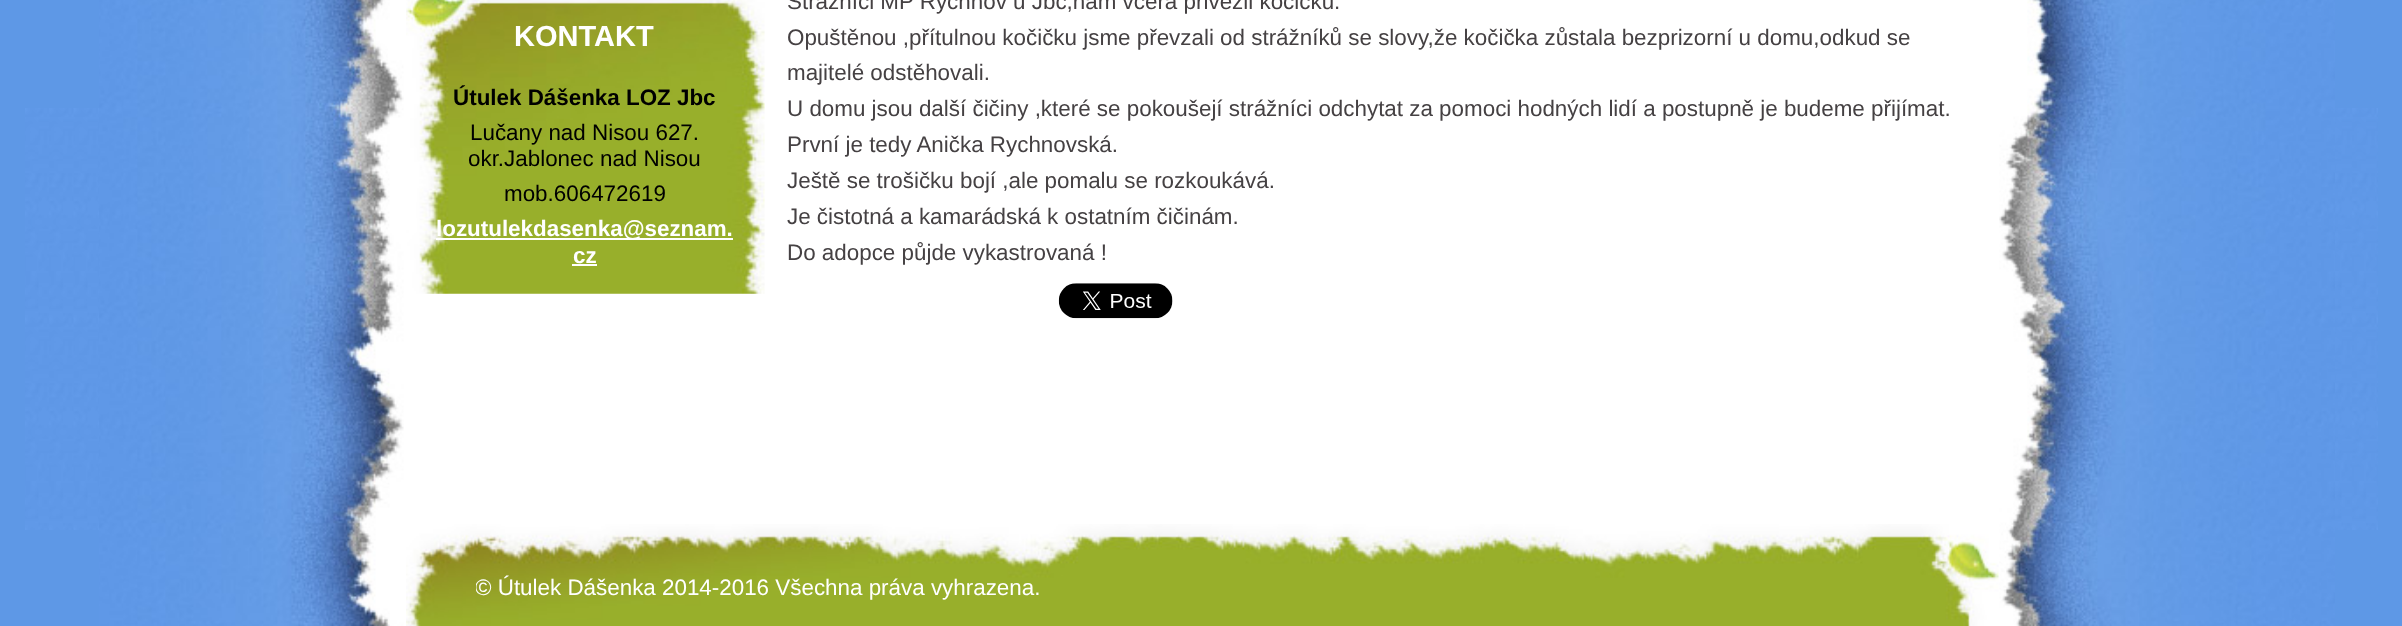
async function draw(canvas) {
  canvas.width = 2402;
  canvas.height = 626;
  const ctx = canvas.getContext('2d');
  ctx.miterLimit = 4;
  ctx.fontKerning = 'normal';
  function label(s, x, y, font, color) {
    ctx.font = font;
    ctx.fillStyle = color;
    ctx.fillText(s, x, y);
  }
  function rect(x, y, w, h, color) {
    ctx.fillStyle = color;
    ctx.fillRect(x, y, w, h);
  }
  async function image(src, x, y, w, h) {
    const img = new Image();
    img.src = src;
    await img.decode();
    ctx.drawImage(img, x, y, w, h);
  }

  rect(0, 0, 2402, 626, '#5e98e6');
  await image('assets/img1.png', 25, 108, 2353, 422);
  await image('assets/img2.png', 99, 0, 2236, 626);
  await image('assets/img3.png', 406, 0, 359, 294);
  label('KONTAKT', 514, 46, 'bold 29px Liberation Sans', '#fff');
  label('Útulek Dášenka LOZ Jbc', 453, 105, 'bold 22.4px Liberation Sans', '#000');
  label('Lučany nad Nisou 627.', 470, 140, '22.4px Liberation Sans', '#000');
  label('okr.Jablonec nad Nisou', 468, 166, '22.4px Liberation Sans', '#000');
  label('mob.606472619', 504, 201, '22.4px Liberation Sans', '#000');
  rect(436, 238, 297, 2, '#fff');
  label('lozutulekdasenka@seznam.', 436, 236, 'bold 22.4px Liberation Sans', '#fff');
  label('cz', 573, 263, 'bold 22.4px Liberation Sans', '#fff');
  rect(572, 264, 25, 2, '#fff');
  label('Strážníci MP Rychnov u Jbc,nám včera přivezli kočičku.', 787, 9, '22.4px Liberation Sans', '#454143');
  label('Opuštěnou ,přítulnou kočičku jsme převzali od strážníků se slovy,že kočička zůstala bezprizorní u domu,odkud se', 787, 45, '22.4px Liberation Sans', '#454143');
  label('majitelé odstěhovali.', 787, 80, '22.4px Liberation Sans', '#454143');
  label('U domu jsou další čičiny ,které se pokoušejí strážníci odchytat za pomoci hodných lidí a postupně je budeme přijímat.', 787, 116, '22.4px Liberation Sans', '#454143');
  label('První je tedy Anička Rychnovská.', 787, 152, '22.4px Liberation Sans', '#454143');
  label('Ještě se trošičku bojí ,ale pomalu se rozkoukává.', 787, 188, '22.4px Liberation Sans', '#454143');
  label('Je čistotná a kamarádská k ostatním čičinám.', 787, 224, '22.4px Liberation Sans', '#454143');
  label('Do adopce půjde vykastrovaná !', 787, 260, '22.4px Liberation Sans', '#454143');
  await image('assets/img4.png', 1058, 283, 115, 36);
  await image('assets/img5.png', 406, 524, 1593, 102);
  ctx.save();
  ctx.beginPath();
  ctx.rect(476, 574, 735, 35);
  ctx.clip();
  label('© Útulek Dášenka 2014-2016 Všechna práva vyhrazena.', 475, 595, '22.4px Liberation Sans', '#fff');
  ctx.restore();
}

draw(document.querySelector('canvas'));
